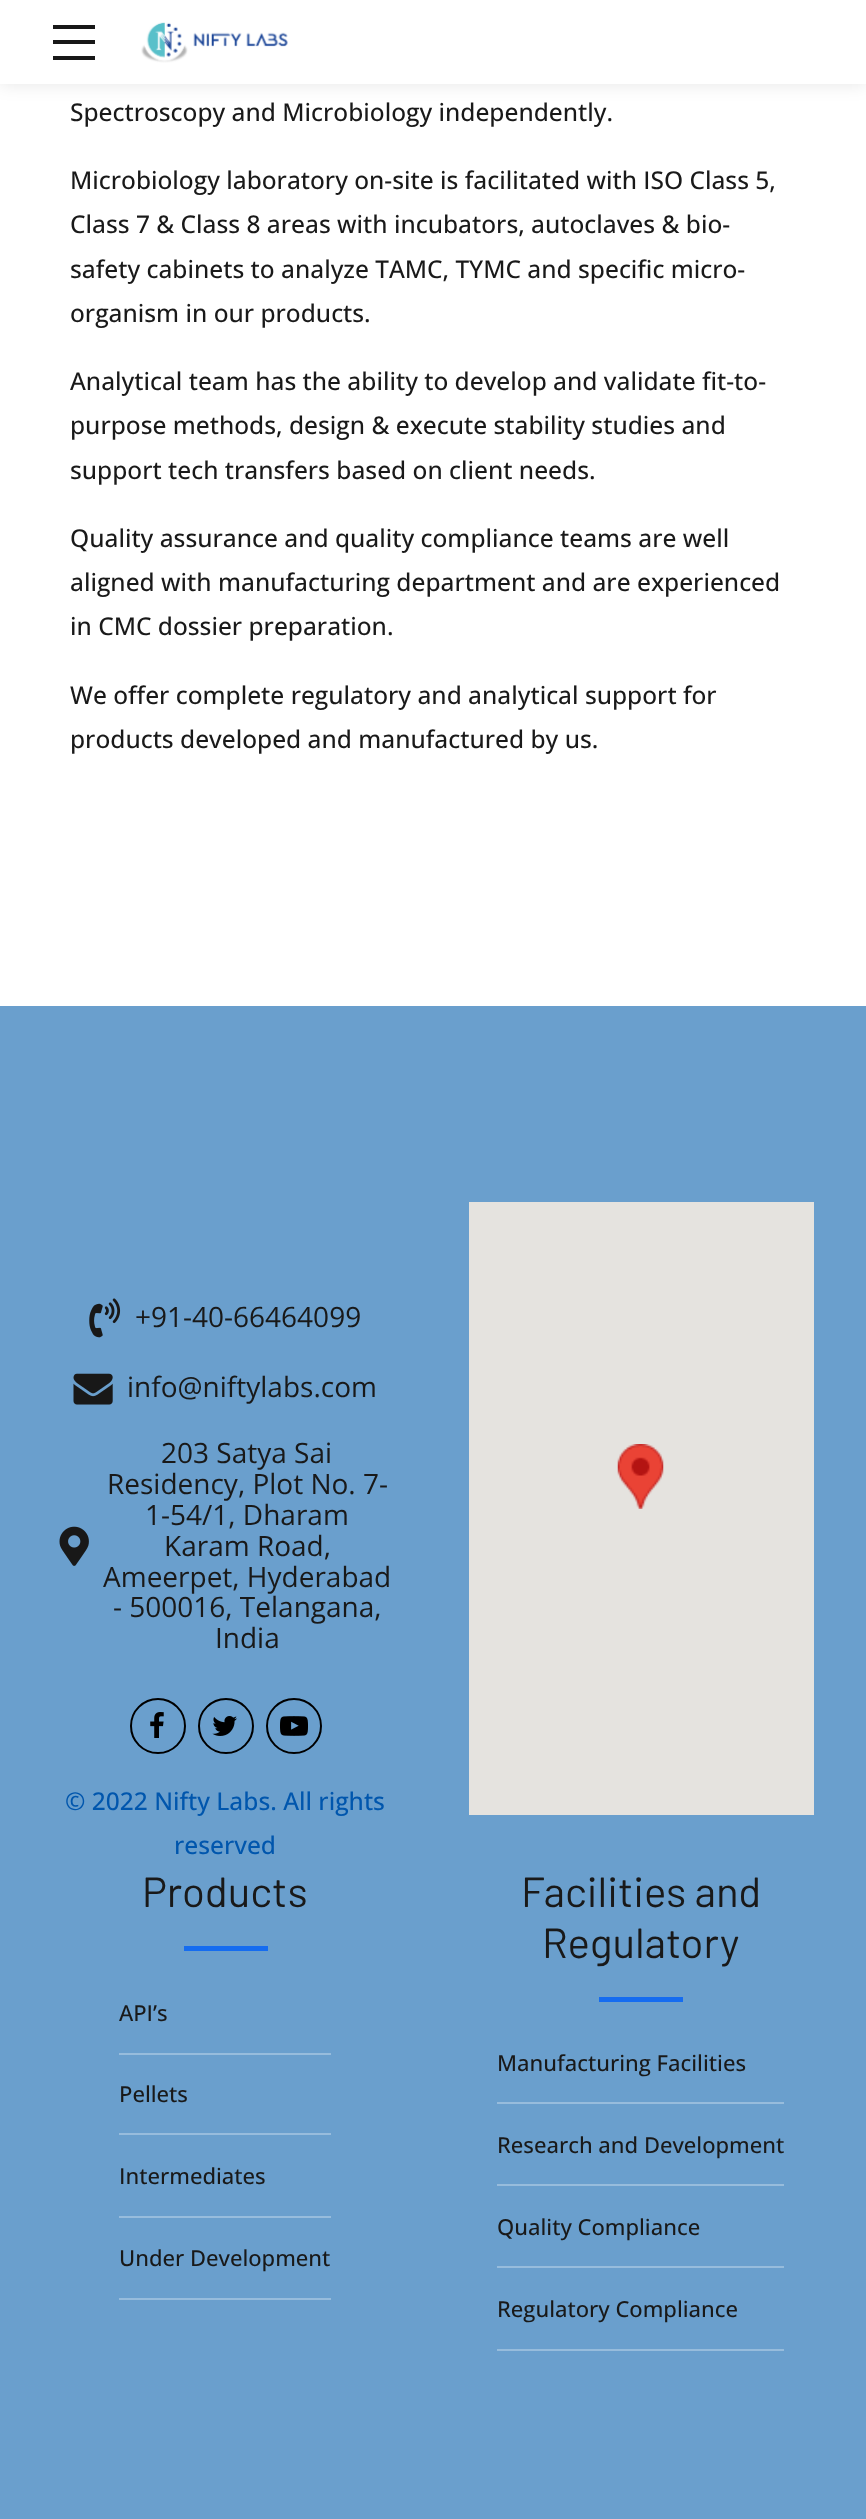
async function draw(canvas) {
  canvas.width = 866;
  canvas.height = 2519;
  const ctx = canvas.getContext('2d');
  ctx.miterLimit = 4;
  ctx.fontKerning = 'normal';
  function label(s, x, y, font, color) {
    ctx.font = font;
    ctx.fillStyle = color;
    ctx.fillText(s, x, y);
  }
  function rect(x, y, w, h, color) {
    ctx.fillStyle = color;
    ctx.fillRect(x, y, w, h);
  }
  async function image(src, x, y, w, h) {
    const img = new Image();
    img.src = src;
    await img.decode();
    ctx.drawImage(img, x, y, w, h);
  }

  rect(0, 0, 866, 2519, '#fff');
  ctx.fillStyle = '#0000001a';
  ctx.filter = 'blur(9px)';
  ctx.beginPath();
  ctx.rect(0, 0, 866, 84);
  ctx.fill();
  ctx.filter = 'none';
  rect(0, 0, 866, 84, '#fff');
  rect(53, 25, 42, 4, '#181818');
  rect(53, 40, 42, 4, '#181818');
  rect(53, 56, 42, 4, '#181818');
  await image('assets/img1.png', 141, 22, 147, 41);
  label('Spectroscopy and Microbiology independently.', 70, 121, '500 24.5px Open Sans', '#191919');
  label('Microbiology laboratory on-site is facilitated with ISO Class 5,', 70, 189, '500 24.5px Open Sans', '#191919');
  label('Class 7 & Class 8 areas with incubators, autoclaves & bio-', 70, 233, '500 24.5px Open Sans', '#191919');
  label('safety cabinets to analyze TAMC, TYMC and specific micro-', 70, 278, '500 24.5px Open Sans', '#191919');
  label('organism in our products.', 70, 322, '500 24.5px Open Sans', '#191919');
  label('Analytical team has the ability to develop and validate fit-to-', 70, 390, '500 24.5px Open Sans', '#191919');
  label('purpose methods, design & execute stability studies and', 70, 434, '500 24.5px Open Sans', '#191919');
  label('support tech transfers based on client needs.', 70, 479, '500 24.5px Open Sans', '#191919');
  label('Quality assurance and quality compliance teams are well', 70, 547, '500 24.5px Open Sans', '#191919');
  label('aligned with manufacturing department and are experienced', 70, 591, '500 24.5px Open Sans', '#191919');
  label('in CMC dossier preparation.', 70, 635, '500 24.5px Open Sans', '#191919');
  label('We offer complete regulatory and analytical support for', 70, 704, '500 24.5px Open Sans', '#191919');
  label('products developed and manufactured by us.', 70, 748, '500 24.5px Open Sans', '#191919');
  rect(0, 1006, 866, 1513, '#6a9fcd');
  await image('assets/img2.png', 89, 1298, 32, 40);
  label('+91-40-66464099', 135, 1327, '28px Open Sans', '#191919');
  await image('assets/img3.png', 73, 1373, 40, 32);
  label('info@niftylabs.com', 127, 1397, '28px Open Sans', '#191919');
  await image('assets/img4.png', 59, 1526, 30, 40);
  label('203 Satya Sai', 161, 1463, '28px Open Sans', '#191919');
  label('Residency, Plot No. 7-', 107, 1494, '28px Open Sans', '#191919');
  label('1-54/1, Dharam', 145, 1525, '28px Open Sans', '#191919');
  label('Karam Road,', 164, 1556, '28px Open Sans', '#191919');
  label('Ameerpet, Hyderabad', 103, 1587, '28px Open Sans', '#191919');
  label('- 500016, Telangana,', 113, 1617, '28px Open Sans', '#191919');
  label('India', 215, 1648, '28px Open Sans', '#191919');
  ctx.beginPath();
  ctx.arc(158, 1726, 27, 0, 2 * Math.PI);
  ctx.strokeStyle = '#000';
  ctx.lineWidth = 2;
  ctx.stroke();
  await image('assets/img5.png', 150, 1712, 14, 26);
  ctx.beginPath();
  ctx.arc(226, 1726, 27, 0, 2 * Math.PI);
  ctx.stroke();
  await image('assets/img6.png', 212, 1716, 25, 20);
  ctx.beginPath();
  ctx.arc(294, 1726, 27, 0, 2 * Math.PI);
  ctx.stroke();
  await image('assets/img7.png', 280, 1716, 28, 20);
  label('© 2022 Nifty Labs. All rights', 65, 1810, '500 24.5px Open Sans', '#0056ad');
  label('reserved', 174, 1854, '500 24.5px Open Sans', '#0056ad');
  rect(469, 1202, 345, 613, '#e5e3df');
  await image('assets/img8.png', 617, 1444, 47, 65);
  label('Products', 142, 1907, '42px Barlow', '#191919');
  rect(184, 1946, 84, 5, '#156cf0');
  rect(119, 2053, 212, 2, '#97bcdc');
  label('API’s', 119, 2021, '500 22px Open Sans', '#191919');
  rect(119, 2133, 212, 2, '#97bcdc');
  label('Pellets', 119, 2102, '500 22px Open Sans', '#191919');
  rect(119, 2216, 212, 2, '#97bcdc');
  label('Intermediates', 119, 2184, '500 22px Open Sans', '#191919');
  rect(119, 2298, 212, 2, '#97bcdc');
  label('Under Development', 119, 2266, '500 22px Open Sans', '#191919');
  label('Facilities and', 521, 1907, '42px Barlow', '#191919');
  label('Regulatory', 542, 1958, '42px Barlow', '#191919');
  rect(599, 1997, 84, 5, '#156cf0');
  rect(497, 2102, 287, 2, '#97bcdc');
  label('Manufacturing Facilities', 497, 2071, '500 22px Open Sans', '#191919');
  rect(497, 2184, 287, 2, '#97bcdc');
  label('Research and Development', 497, 2153, '500 22px Open Sans', '#191919');
  rect(497, 2266, 287, 2, '#97bcdc');
  label('Quality Compliance', 497, 2235, '500 22px Open Sans', '#191919');
  rect(497, 2349, 287, 2, '#97bcdc');
  label('Regulatory Compliance', 497, 2317, '500 22px Open Sans', '#191919');
}

draw(document.querySelector('canvas'));
